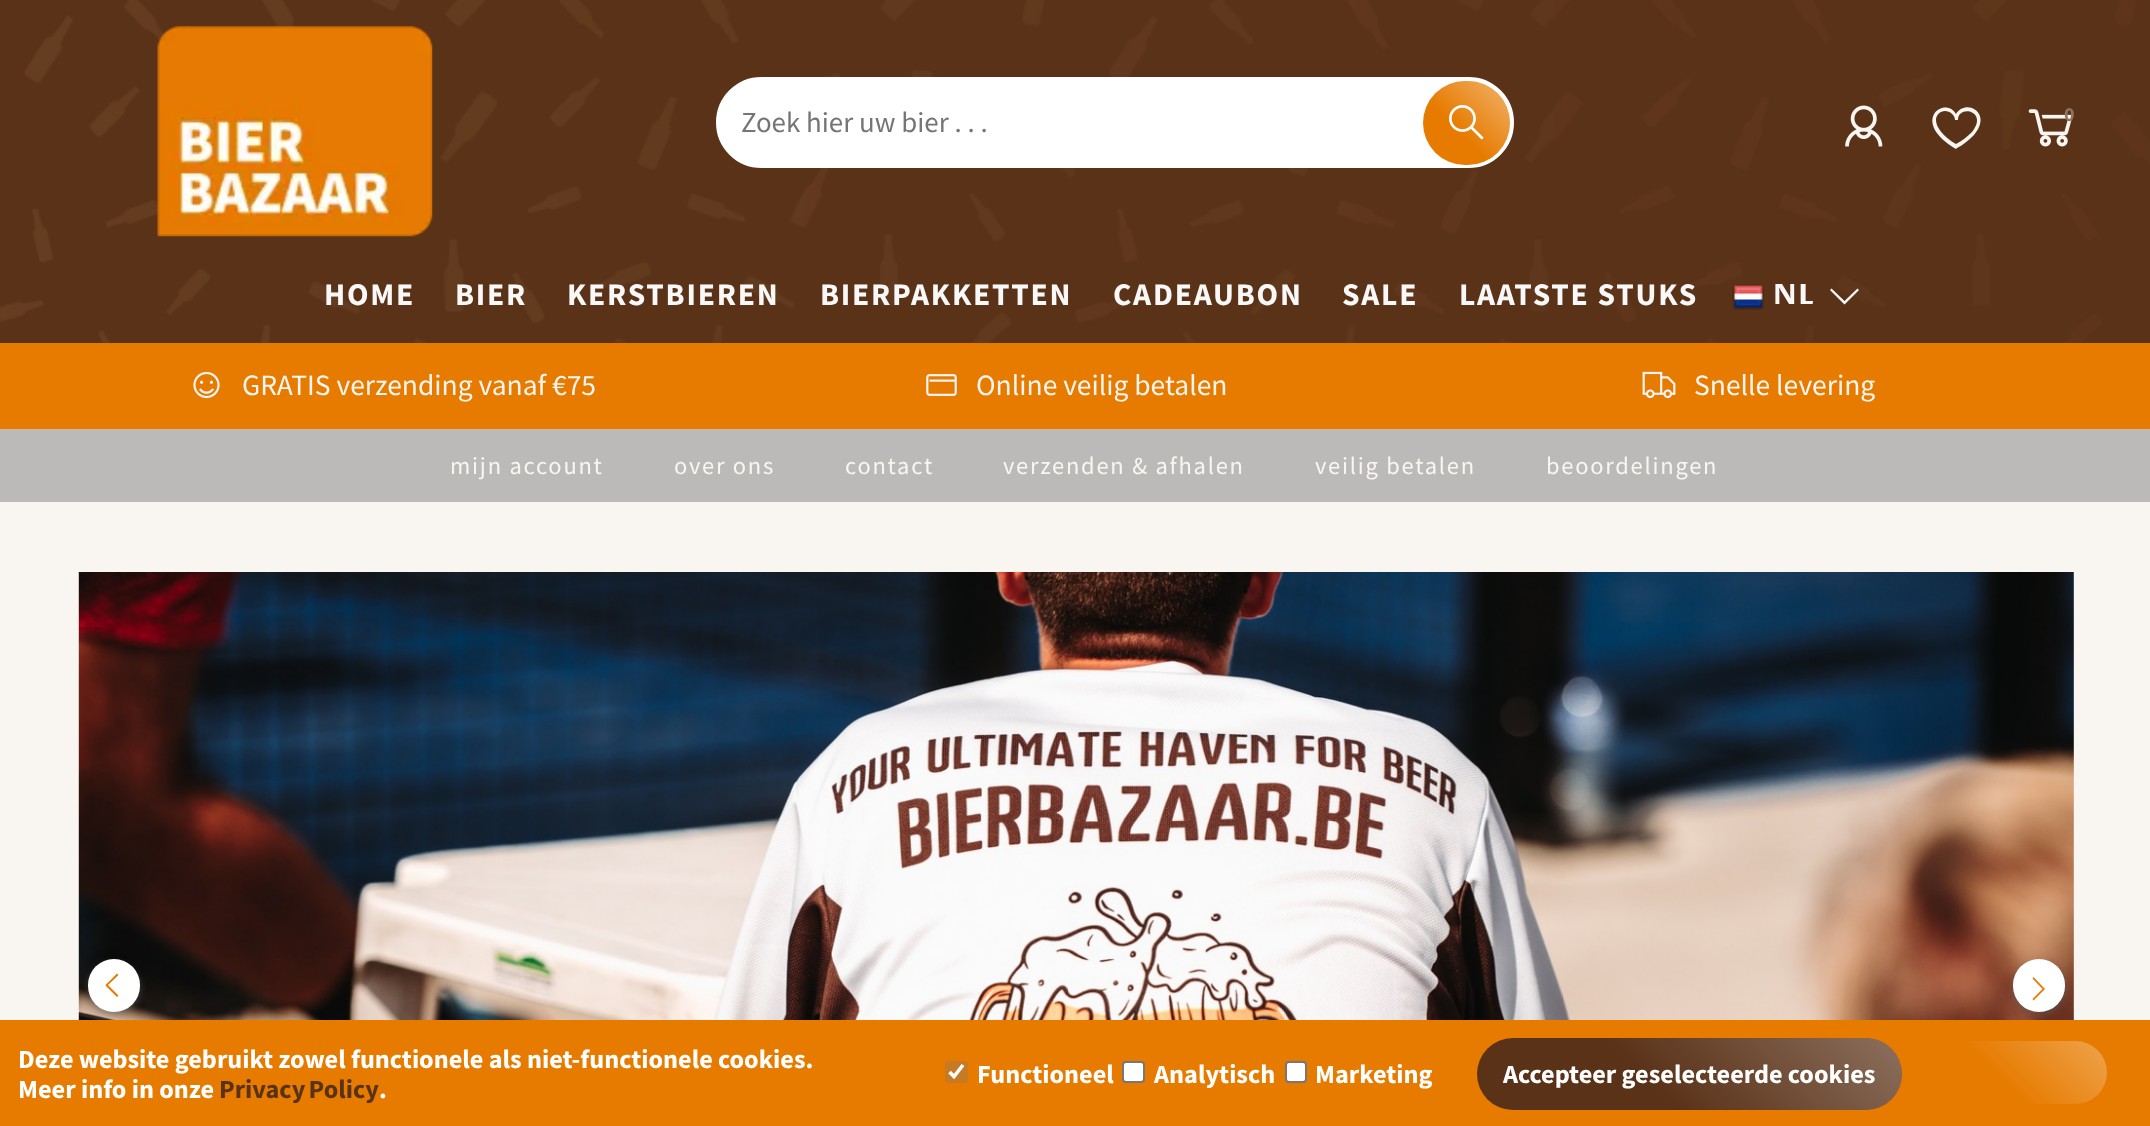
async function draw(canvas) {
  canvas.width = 2150;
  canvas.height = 1126;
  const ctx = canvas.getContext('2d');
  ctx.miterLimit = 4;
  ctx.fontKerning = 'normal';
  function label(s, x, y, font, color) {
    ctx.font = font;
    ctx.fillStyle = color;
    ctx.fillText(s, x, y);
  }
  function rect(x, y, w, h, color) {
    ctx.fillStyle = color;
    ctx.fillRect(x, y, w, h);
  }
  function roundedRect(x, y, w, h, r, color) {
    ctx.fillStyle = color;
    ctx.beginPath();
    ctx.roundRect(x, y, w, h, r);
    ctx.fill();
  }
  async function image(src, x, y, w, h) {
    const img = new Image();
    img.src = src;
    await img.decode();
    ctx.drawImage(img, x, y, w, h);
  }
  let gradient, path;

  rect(0, 0, 2150, 1126, '#f9f6f2');
  await image('assets/img1.png', 0, 0, 2150, 343);
  await image('assets/img2.png', 157, 26, 276, 211);
  ctx.fillStyle = '#fff';
  ctx.beginPath();
  ctx.roundRect(719.5, 80.5, 791, 84, 42);
  ctx.fill();
  ctx.strokeStyle = '#fff';
  ctx.lineWidth = 7;
  ctx.stroke();
  label('Zoek hier uw bier . . .', 741, 132, '28.9px Source Sans Pro', '#757575');
  roundedRect(1423, 81, 87, 84, 42, '#e77b00');
  gradient = ctx.createLinearGradient(1509, 80, 1424, 165);
  gradient.addColorStop(0.04, '#ffffff66');
  gradient.addColorStop(0.6, '#ffffff00');
  ctx.fillStyle = gradient;
  ctx.beginPath();
  ctx.roundRect(1423, 81, 87, 84, 42);
  ctx.fill();
  await image('assets/img3.png', 1449, 105, 35, 35);
  await image('assets/img4.png', 1845, 105, 38, 42);
  ctx.fillStyle = '#f9f6f2';
  path = new Path2D('M1956 149C1909 121 1945 95 1956 114C1966 98 1993 113 1974 135C1969 140 1963 145 1957 148ZM1945 111C1940 111 1936 115 1936 120C1936 131 1952 142 1956 144C1962 141 1967 137 1972 132C1989 111 1958 104 1958 120H1955C1955 115 1950 111 1945 111Z');
  ctx.fill(path);
  await image('assets/img5.png', 2028, 109, 45, 38);
  label('0', 2064, 121, 'bold 20px Source Sans Pro', '#907461');
  ctx.letterSpacing = '1.75px';
  label('HOME', 324, 305, 'bold 31.5px Source Sans Pro', '#f8f8f8');
  label('BIER', 455, 305, 'bold 31.5px Source Sans Pro', '#f8f8f8');
  label('KERSTBIEREN', 567, 305, 'bold 31.5px Source Sans Pro', '#f8f8f8');
  label('BIERPAKKETTEN', 820, 305, 'bold 31.5px Source Sans Pro', '#f8f8f8');
  label('CADEAUBON', 1113, 305, 'bold 31.5px Source Sans Pro', '#f8f8f8');
  label('SALE', 1342, 305, 'bold 31.5px Source Sans Pro', '#f8f8f8');
  label('LAATSTE STUKS', 1459, 305, 'bold 31.5px Source Sans Pro', '#f8f8f8');
  await image('assets/img6.png', 1732, 284, 32, 26);
  label('NL', 1773, 304, 'bold 28px Proza Libre', '#f8f8f8');
  path = new Path2D('M1831.5 288.5L1830 290L1844.5 304.5L1859 290L1857.5 288.5L1844.5 301Z');
  ctx.fill(path);
  rect(0, 343, 2150, 86, '#e77b00');
  await image('assets/img7.png', 193, 371, 27, 28);
  ctx.letterSpacing = '0px';
  label('GRATIS verzending vanaf €75', 242, 395, '29.5px Source Sans Pro', '#f9f6f2');
  await image('assets/img8.png', 926, 374, 31, 22);
  label('Online veilig betalen', 976, 395, '29.5px Source Sans Pro', '#f9f6f2');
  await image('assets/img9.png', 1642, 371, 34, 28);
  label('Snelle levering', 1694, 395, '29.5px Source Sans Pro', '#f9f6f2');
  rect(0, 429, 2150, 73, '#bcbab8');
  ctx.letterSpacing = '1.75px';
  label('mijn account', 450, 474, '24.5px Source Sans Pro', '#f9f6f2');
  label('over ons', 674, 474, '24.5px Source Sans Pro', '#f9f6f2');
  label('contact', 845, 474, '24.5px Source Sans Pro', '#f9f6f2');
  label('verzenden & afhalen', 1003, 474, '24.5px Source Sans Pro', '#f9f6f2');
  label('veilig betalen', 1315, 474, '24.5px Source Sans Pro', '#f9f6f2');
  label('beoordelingen', 1546, 474, '24.5px Source Sans Pro', '#f9f6f2');
  await image('assets/img10.png', 78, 572, 1996, 448);
  ctx.fillStyle = '#62626280';
  ctx.filter = 'blur(3.5px)';
  ctx.beginPath();
  ctx.roundRect(88, 963, 52, 52, 26);
  ctx.fill();
  ctx.filter = 'none';
  roundedRect(88, 959, 52, 53, 26, '#fff');
  ctx.fillStyle = '#e77b00';
  path = new Path2D('M105.5 985L117 973.5L118.5 975L108 985L118.5 995.5L117 997L106 986Z');
  ctx.fill(path);
  ctx.fillStyle = '#62626280';
  ctx.filter = 'blur(3.5px)';
  ctx.beginPath();
  ctx.roundRect(2013, 963, 52, 52, 26);
  ctx.fill();
  ctx.filter = 'none';
  roundedRect(2013, 959, 52, 53, 26, '#fff');
  ctx.fillStyle = '#e77b00';
  path = new Path2D('M2045 989L2033.5 977L2032.5 978.5L2042.5 989L2032.5 999L2033.5 1000.5L2044.5 989.5Z');
  ctx.fill(path);
  rect(0, 1020, 2150, 106, '#e77b00');
  ctx.letterSpacing = '0px';
  label('Deze website gebruikt zowel functionele als niet-functionele cookies.', 18, 1068, 'bold 26.25px Source Sans Pro', '#fff');
  label('Meer info in onze', 18, 1098, 'bold 26.25px Source Sans Pro', '#fff');
  ctx.wordSpacing = '-2px';
  label('Privacy Policy', 219, 1098, 'bold 26.25px Source Sans Pro', '#5a3218');
  ctx.wordSpacing = '0px';
  label('.', 379, 1098, 'bold 26.25px Source Sans Pro', '#fff');
  roundedRect(945, 1061, 23, 22, 4, '#c57a23');
  path = new Path2D('M949.5 1072L954 1076.5L963 1065');
  ctx.lineWidth = 3.6;
  ctx.stroke(path);
  label('Functioneel', 977, 1083, 'bold 26.25px Source Sans Pro', '#fff');
  ctx.beginPath();
  ctx.roundRect(1123, 1062, 21, 20, 3);
  ctx.fill();
  ctx.strokeStyle = '#767676';
  ctx.lineWidth = 2;
  ctx.stroke();
  label('Analytisch', 1154, 1083, 'bold 26.25px Source Sans Pro', '#fff');
  ctx.beginPath();
  ctx.roundRect(1286, 1062, 20, 20, 3);
  ctx.fill();
  ctx.stroke();
  label('Marketing', 1315, 1083, 'bold 26.25px Source Sans Pro', '#fff');
  roundedRect(1477, 1038, 425, 72, 36, '#5a3218');
  gradient = ctx.createLinearGradient(1814, 949, 1565, 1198);
  gradient.addColorStop(0, '#ffffff4d');
  gradient.addColorStop(0.6, '#ffffff00');
  ctx.fillStyle = gradient;
  ctx.beginPath();
  ctx.roundRect(1477, 1038, 425, 72, 36);
  ctx.fill();
  label('Accepteer geselecteerde cookies', 1503, 1083, 'bold 26.25px Source Sans Pro', '#fff');
  gradient = ctx.createLinearGradient(2078, 1012, 1957, 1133);
  gradient.addColorStop(0, '#eea34d');
  gradient.addColorStop(0.6, '#e77b00');
  ctx.fillStyle = gradient;
  ctx.beginPath();
  ctx.roundRect(1929, 1041, 178, 63, 31.5);
  ctx.fill();
}

draw(document.querySelector('canvas'));
